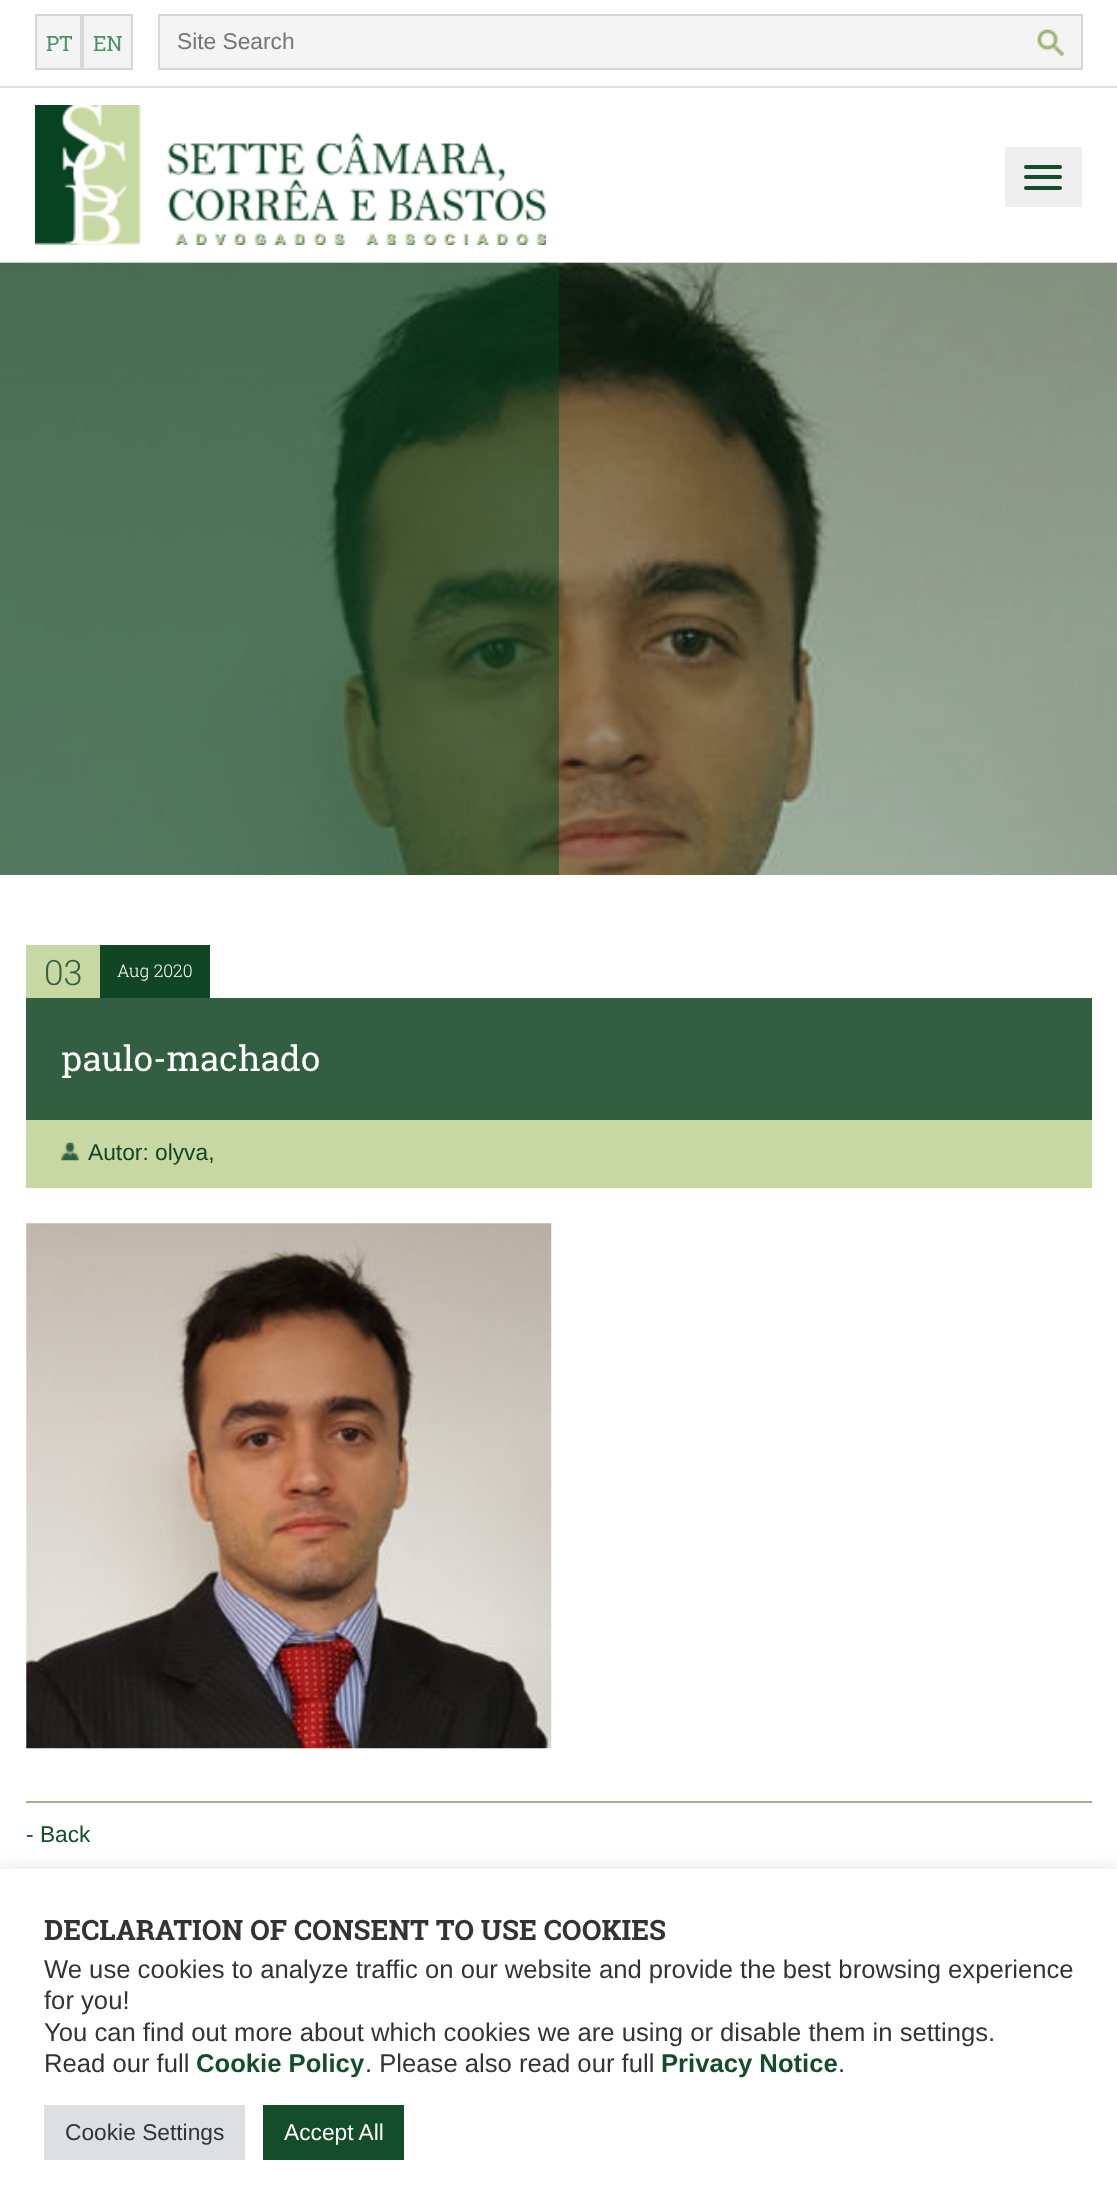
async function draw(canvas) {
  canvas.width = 1117;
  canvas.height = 2212;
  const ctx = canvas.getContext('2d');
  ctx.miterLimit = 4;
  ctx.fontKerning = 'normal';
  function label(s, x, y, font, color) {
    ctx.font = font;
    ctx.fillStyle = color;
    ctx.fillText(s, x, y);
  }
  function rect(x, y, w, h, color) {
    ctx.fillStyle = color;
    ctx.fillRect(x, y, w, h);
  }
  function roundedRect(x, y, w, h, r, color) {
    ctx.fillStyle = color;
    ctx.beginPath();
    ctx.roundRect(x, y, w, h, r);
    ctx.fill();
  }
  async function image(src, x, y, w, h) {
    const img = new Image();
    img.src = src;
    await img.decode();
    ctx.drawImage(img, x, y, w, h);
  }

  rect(0, 0, 1117, 2212, '#fff');
  rect(0, 86, 1117, 2, '#e1e1e1');
  ctx.fillStyle = '#f4f4f4';
  ctx.beginPath();
  ctx.rect(36, 15, 45, 54);
  ctx.fill();
  ctx.strokeStyle = '#d7d7d7';
  ctx.lineWidth = 2;
  ctx.stroke();
  label('PT', 46, 51, '21px Roboto Slab', '#4d9266');
  ctx.fillStyle = '#f4f4f4';
  ctx.beginPath();
  ctx.rect(83, 15, 49, 54);
  ctx.fill();
  ctx.stroke();
  label('EN', 93, 51, '21px Roboto Slab', '#4d9266');
  ctx.fillStyle = '#f4f4f4';
  ctx.beginPath();
  ctx.rect(159, 15, 923, 54);
  ctx.fill();
  ctx.stroke();
  label('Site Search', 177, 49, '22.75px Liberation Sans', '#757575');
  await image('assets/img1.png', 1037, 29, 27, 27);
  await image('assets/img2.png', 35, 105, 511, 140);
  rect(1005, 147, 77, 60, '#efefef');
  roundedRect(1024, 165, 38, 4, 2, '#144d29');
  roundedRect(1024, 175, 38, 4, 2, '#144d29');
  roundedRect(1024, 186, 38, 4, 2, '#144d29');
  await image('assets/img3.png', 0, 262, 1117, 613);
  await image('assets/img4.png', 0, 262, 1117, 613);
  rect(26, 945, 74, 53, '#c8d8a3');
  label('03', 44, 985, '300 35px Roboto Slab', '#325f42');
  rect(100, 945, 110, 53, '#104623');
  label('Aug 2020', 117, 977, '300 17.5px Roboto Slab', '#fff');
  rect(26, 998, 1066, 122, '#325f42');
  label('paulo-machado', 61, 1071, '35px Roboto Slab', '#fff');
  rect(26, 1120, 1066, 68, '#c8d8a3');
  await image('assets/img5.png', 61, 1142, 18, 19);
  label('Autor: olyva,', 88, 1160, '22.75px Liberation Sans', '#104623');
  await image('assets/img6.png', 26, 1223, 526, 526);
  rect(26, 1801, 1066, 2, '#a2b185');
  label('- Back', 26, 1842, '22.75px Liberation Sans', '#144d29');
  ctx.fillStyle = '#acabab4d';
  ctx.filter = 'blur(9px)';
  ctx.beginPath();
  ctx.rect(0, 1867, 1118, 343);
  ctx.fill();
  ctx.filter = 'none';
  rect(0, 1869, 1117, 343, '#fff');
  label('DECLARATION OF CONSENT TO USE COOKIES', 44, 1940, 'bold 28px Roboto Slab', '#333');
  label('We use cookies to analyze traffic on our website and provide the best browsing experience', 44, 1978, '25.65px Liberation Sans', '#333');
  label('for you!', 44, 2009, '25.65px Liberation Sans', '#333');
  label('You can find out more about which cookies we are using or disable them in settings.', 44, 2041, '25.65px Liberation Sans', '#333');
  label('Read our full', 44, 2072, '25.65px Liberation Sans', '#333');
  label('Cookie Policy', 196, 2072, 'bold 25.65px Liberation Sans', '#144d29');
  label('. Please also read our full', 365, 2072, '25.65px Liberation Sans', '#333');
  label('Privacy Notice', 661, 2072, 'bold 25.65px Liberation Sans', '#144d29');
  label('.', 838, 2072, '25.65px Liberation Sans', '#333');
  rect(44, 2105, 201, 55, '#dedfe0');
  label('Cookie Settings', 65, 2140, '22.75px Liberation Sans', '#333');
  rect(263, 2105, 141, 55, '#144d29');
  label('Accept All', 284, 2140, '22.75px Liberation Sans', '#fff');
}

draw(document.querySelector('canvas'));
